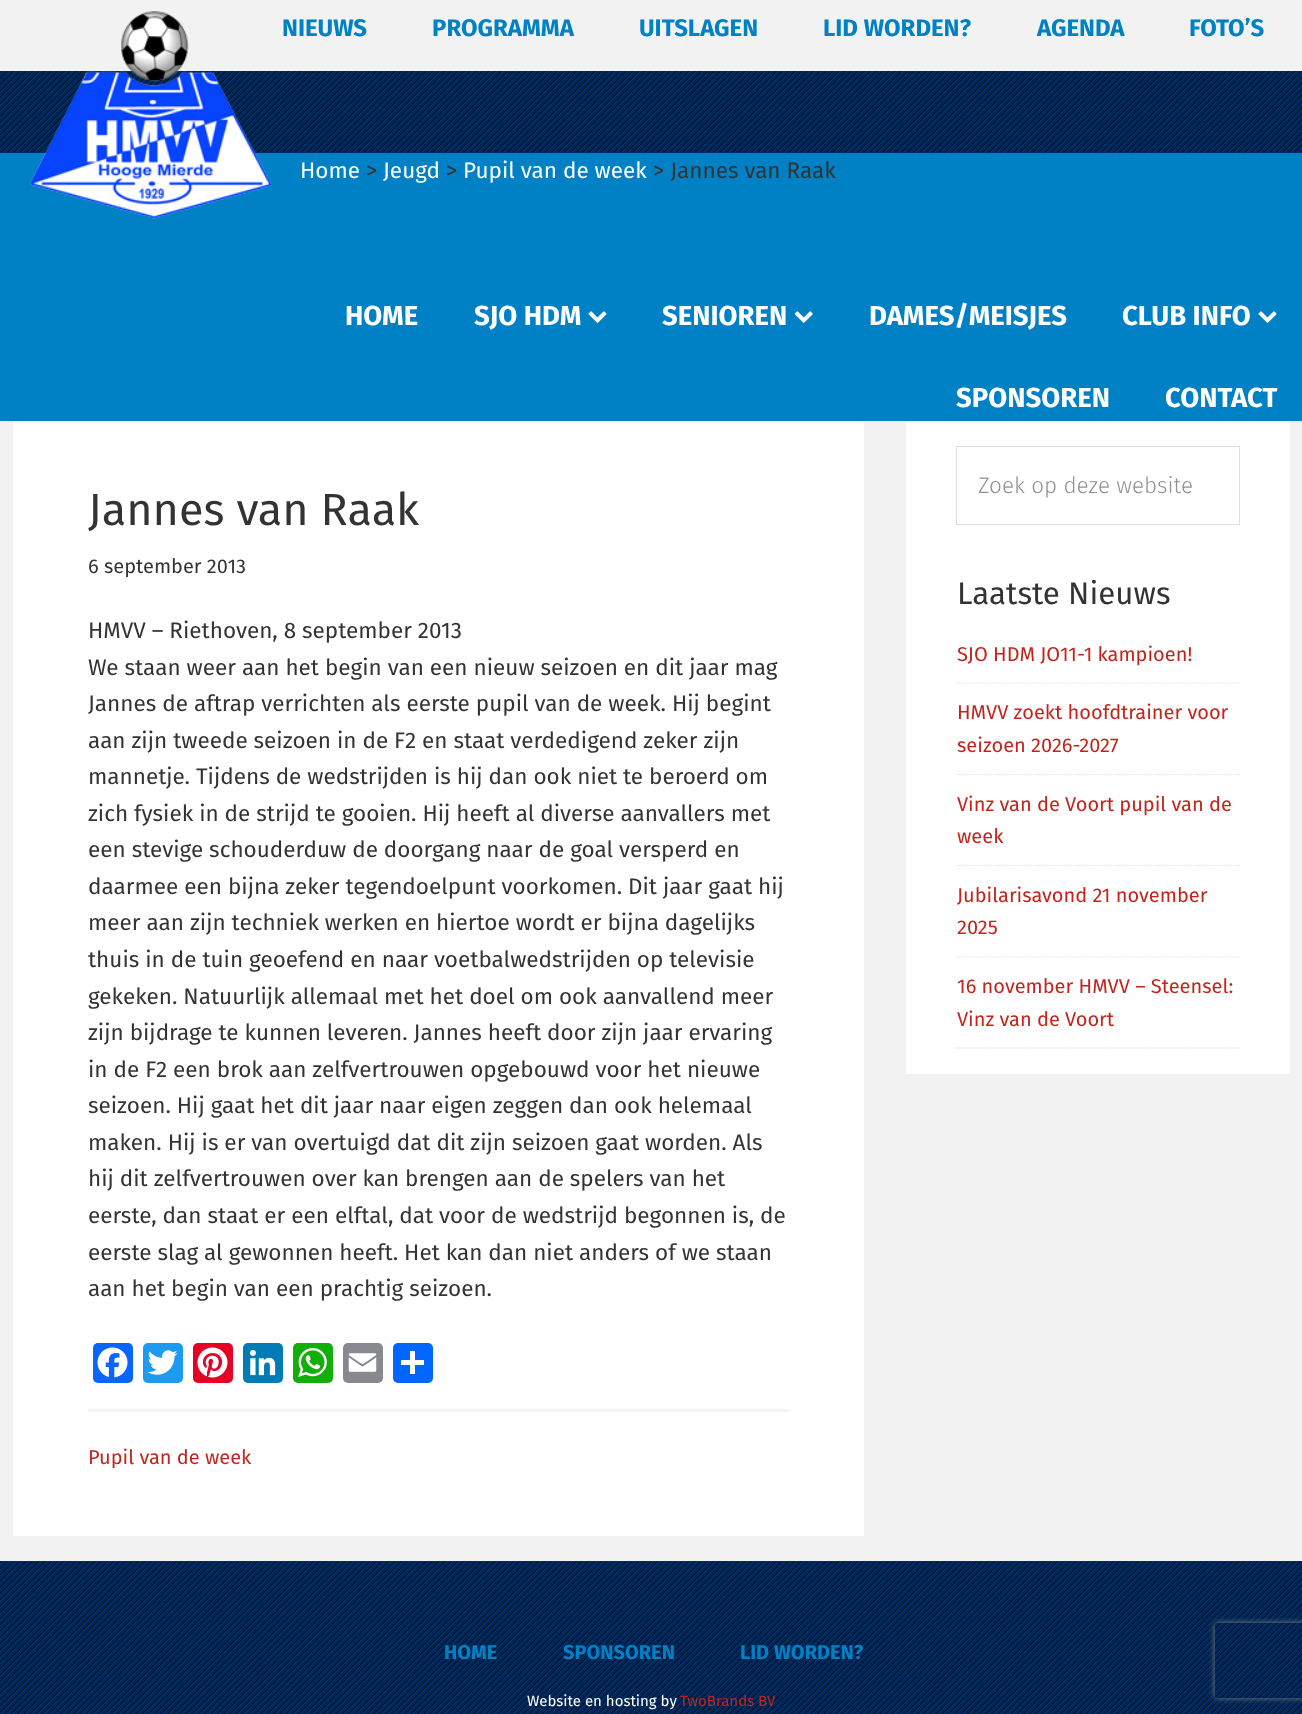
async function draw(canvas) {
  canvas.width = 1302;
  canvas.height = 1714;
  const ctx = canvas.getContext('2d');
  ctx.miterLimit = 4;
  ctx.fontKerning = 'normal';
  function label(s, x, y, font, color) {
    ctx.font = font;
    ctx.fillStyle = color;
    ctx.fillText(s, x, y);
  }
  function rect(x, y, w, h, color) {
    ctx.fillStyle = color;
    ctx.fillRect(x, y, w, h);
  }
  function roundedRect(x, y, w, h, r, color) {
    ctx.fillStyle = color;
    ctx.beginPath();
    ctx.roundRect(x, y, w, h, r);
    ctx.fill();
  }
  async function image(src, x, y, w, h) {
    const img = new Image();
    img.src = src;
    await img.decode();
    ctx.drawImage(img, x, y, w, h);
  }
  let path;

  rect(0, 0, 1302, 1714, '#f2f2f2');
  label('NIEUWS', 282, 36, 'bold 24px Fira Sans', '#0081c5');
  label('PROGRAMMA', 432, 36, 'bold 24px Fira Sans', '#0081c5');
  label('UITSLAGEN', 639, 36, 'bold 24px Fira Sans', '#0081c5');
  label('LID WORDEN?', 823, 36, 'bold 24px Fira Sans', '#0081c5');
  label('AGENDA', 1037, 36, 'bold 24px Fira Sans', '#0081c5');
  label('FOTO’S', 1189, 36, 'bold 24px Fira Sans', '#0081c5');
  rect(0, 153, 1302, 268, '#0081c5');
  label('Home', 300, 178, '22.5px Fira Sans', '#fff');
  label('>', 366, 178, '22.5px Fira Sans', '#333');
  label('Jeugd', 383, 178, '22.5px Fira Sans', '#fff');
  label('>', 446, 178, '22.5px Fira Sans', '#333');
  label('Pupil van de week', 463, 178, '22.5px Fira Sans', '#fff');
  label('> Jannes van Raak', 653, 178, '22.5px Fira Sans', '#333');
  rect(0, 71, 1302, 82, '#003473');
  await image('assets/img1.png', 0, 71, 1302, 82);
  await image('assets/img2.png', 29, 11, 244, 208);
  label('HOME', 345, 325, 'bold 27.5px Fira Sans', '#fff');
  label('SJO HDM', 474, 325, 'bold 27.5px Fira Sans', '#fff');
  await image('assets/img3.png', 588, 311, 19, 12);
  label('SENIOREN', 662, 325, 'bold 27.5px Fira Sans', '#fff');
  await image('assets/img4.png', 794, 311, 19, 12);
  label('DAMES/MEISJES', 869, 325, 'bold 27.5px Fira Sans', '#fff');
  label('CLUB INFO', 1122, 325, 'bold 27.5px Fira Sans', '#fff');
  await image('assets/img3.png', 1258, 311, 19, 12);
  label('SPONSOREN', 956, 407, 'bold 27.5px Fira Sans', '#fff');
  label('CONTACT', 1165, 407, 'bold 27.5px Fira Sans', '#fff');
  rect(13, 421, 851, 1115, '#fff');
  label('Jannes van Raak', 88, 525, '45px Fira Sans', '#333');
  label('6 september 2013', 88, 573, '20px Fira Sans', '#333');
  label('HMVV – Riethoven, 8 september 2013', 88, 638, '22.5px Fira Sans', '#333');
  label('We staan weer aan het begin van een nieuw seizoen en dit jaar mag', 88, 675, '22.5px Fira Sans', '#333');
  label('Jannes de aftrap verrichten als eerste pupil van de week. Hij begint', 88, 711, '22.5px Fira Sans', '#333');
  label('aan zijn tweede seizoen in de F2 en staat verdedigend zeker zijn', 88, 748, '22.5px Fira Sans', '#333');
  label('mannetje. Tijdens de wedstrijden is hij dan ook niet te beroerd om', 88, 784, '22.5px Fira Sans', '#333');
  label('zich fysiek in de strijd te gooien. Hij heeft al diverse aanvallers met', 88, 821, '22.5px Fira Sans', '#333');
  label('een stevige schouderduw de doorgang naar de goal versperd en', 88, 857, '22.5px Fira Sans', '#333');
  label('daarmee een bijna zeker tegendoelpunt voorkomen. Dit jaar gaat hij', 88, 894, '22.5px Fira Sans', '#333');
  label('meer aan zijn techniek werken en hiertoe wordt er bijna dagelijks', 88, 930, '22.5px Fira Sans', '#333');
  label('thuis in de tuin geoefend en naar voetbalwedstrijden op televisie', 88, 967, '22.5px Fira Sans', '#333');
  label('gekeken. Natuurlijk allemaal met het doel om ook aanvallend meer', 88, 1004, '22.5px Fira Sans', '#333');
  label('zijn bijdrage te kunnen leveren. Jannes heeft door zijn jaar ervaring', 88, 1040, '22.5px Fira Sans', '#333');
  label('in de F2 een brok aan zelfvertrouwen opgebouwd voor het nieuwe', 88, 1077, '22.5px Fira Sans', '#333');
  label('seizoen. Hij gaat het dit jaar naar eigen zeggen dan ook helemaal', 88, 1113, '22.5px Fira Sans', '#333');
  label('maken. Hij is er van overtuigd dat dit zijn seizoen gaat worden. Als', 88, 1150, '22.5px Fira Sans', '#333');
  label('hij dit zelfvertrouwen over kan brengen aan de spelers van het', 88, 1186, '22.5px Fira Sans', '#333');
  label('eerste, dan staat er een elftal, dat voor de wedstrijd begonnen is, de', 88, 1223, '22.5px Fira Sans', '#333');
  label('eerste slag al gewonnen heeft. Het kan dan niet anders of we staan', 88, 1260, '22.5px Fira Sans', '#333');
  label('aan het begin van een prachtig seizoen.', 88, 1296, '22.5px Fira Sans', '#333');
  roundedRect(93, 1343, 40, 40, 5, '#0866ff');
  await image('assets/img5.png', 97, 1347, 31, 31);
  roundedRect(143, 1343, 40, 40, 5, '#1d9bf0');
  await image('assets/img6.png', 147, 1350, 31, 25);
  roundedRect(193, 1343, 40, 40, 5, '#e60023');
  await image('assets/img7.png', 197, 1347, 31, 31);
  roundedRect(243, 1343, 40, 40, 5, '#007bb5');
  await image('assets/img8.png', 249, 1349, 27, 27);
  roundedRect(293, 1343, 40, 40, 5, '#12af0a');
  await image('assets/img9.png', 298, 1348, 29, 29);
  roundedRect(343, 1343, 40, 40, 5, '#888990');
  await image('assets/img10.png', 348, 1353, 29, 19);
  roundedRect(393, 1343, 40, 40, 5, '#0166ff');
  rect(410, 1351, 5, 23, '#fff');
  rect(401, 1360, 23, 5, '#fff');
  rect(88, 1409, 701, 3, '#f5f5f5');
  label('Pupil van de week', 88, 1464, '20px Fira Sans', '#c3251d');
  rect(906, 421, 384, 653, '#fff');
  ctx.strokeStyle = '#ddd';
  ctx.strokeRect(956.5, 446.5, 283, 78);
  label('Zoek op deze website', 978, 493, '300 22.5px Fira Sans', '#919191');
  label('Laatste Nieuws', 957, 604, '31.25px Fira Sans', '#333');
  path = new Path2D('M956 683H1240');
  ctx.lineWidth = 1.2;
  ctx.setLineDash([1.25, 1.25]);
  ctx.stroke(path);
  label('SJO HDM JO11-1 kampioen!', 957, 661, '20px Fira Sans', '#c3251d');
  path = new Path2D('M956 774.5H1240');
  ctx.stroke(path);
  label('HMVV zoekt hoofdtrainer voor', 957, 719, '20px Fira Sans', '#c3251d');
  label('seizoen 2026-2027', 957, 752, '20px Fira Sans', '#c3251d');
  path = new Path2D('M956 865.5H1240');
  ctx.stroke(path);
  label('Vinz van de Voort pupil van de', 957, 811, '20px Fira Sans', '#c3251d');
  label('week', 957, 843, '20px Fira Sans', '#c3251d');
  path = new Path2D('M956 957H1240');
  ctx.stroke(path);
  label('Jubilarisavond 21 november', 957, 902, '20px Fira Sans', '#c3251d');
  label('2025', 957, 934, '20px Fira Sans', '#c3251d');
  path = new Path2D('M956 1048H1240');
  ctx.stroke(path);
  label('16 november HMVV – Steensel:', 957, 993, '20px Fira Sans', '#c3251d');
  label('Vinz van de Voort', 957, 1026, '20px Fira Sans', '#c3251d');
  rect(0, 1561, 1302, 153, '#003473');
  await image('assets/img11.png', 0, 1561, 1302, 153);
  label('HOME', 444, 1659, 'bold 20px Fira Sans', '#0081c5');
  label('SPONSOREN', 563, 1659, 'bold 20px Fira Sans', '#0081c5');
  label('LID WORDEN?', 740, 1659, 'bold 20px Fira Sans', '#0081c5');
  label('Website en hosting by', 527, 1706, '15px Fira Sans', '#fff');
  label('TwoBrands BV', 680, 1706, '15px Fira Sans', '#c3251d');
  ctx.save();
  path = new Path2D('M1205 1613H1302V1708H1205ZM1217.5 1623H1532.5C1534 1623 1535 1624 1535 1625.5V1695.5C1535 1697 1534 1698 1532.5 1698H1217.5C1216 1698 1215 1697 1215 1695.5V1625.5C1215 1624 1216 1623 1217.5 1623Z');
  ctx.clip(path, 'evenodd');
  ctx.fillStyle = '#808080';
  ctx.filter = 'blur(3px)';
  ctx.beginPath();
  ctx.roundRect(1215, 1623, 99, 75, 2.5);
  ctx.fill();
  ctx.filter = 'none';
  ctx.restore();
}

draw(document.querySelector('canvas'));
